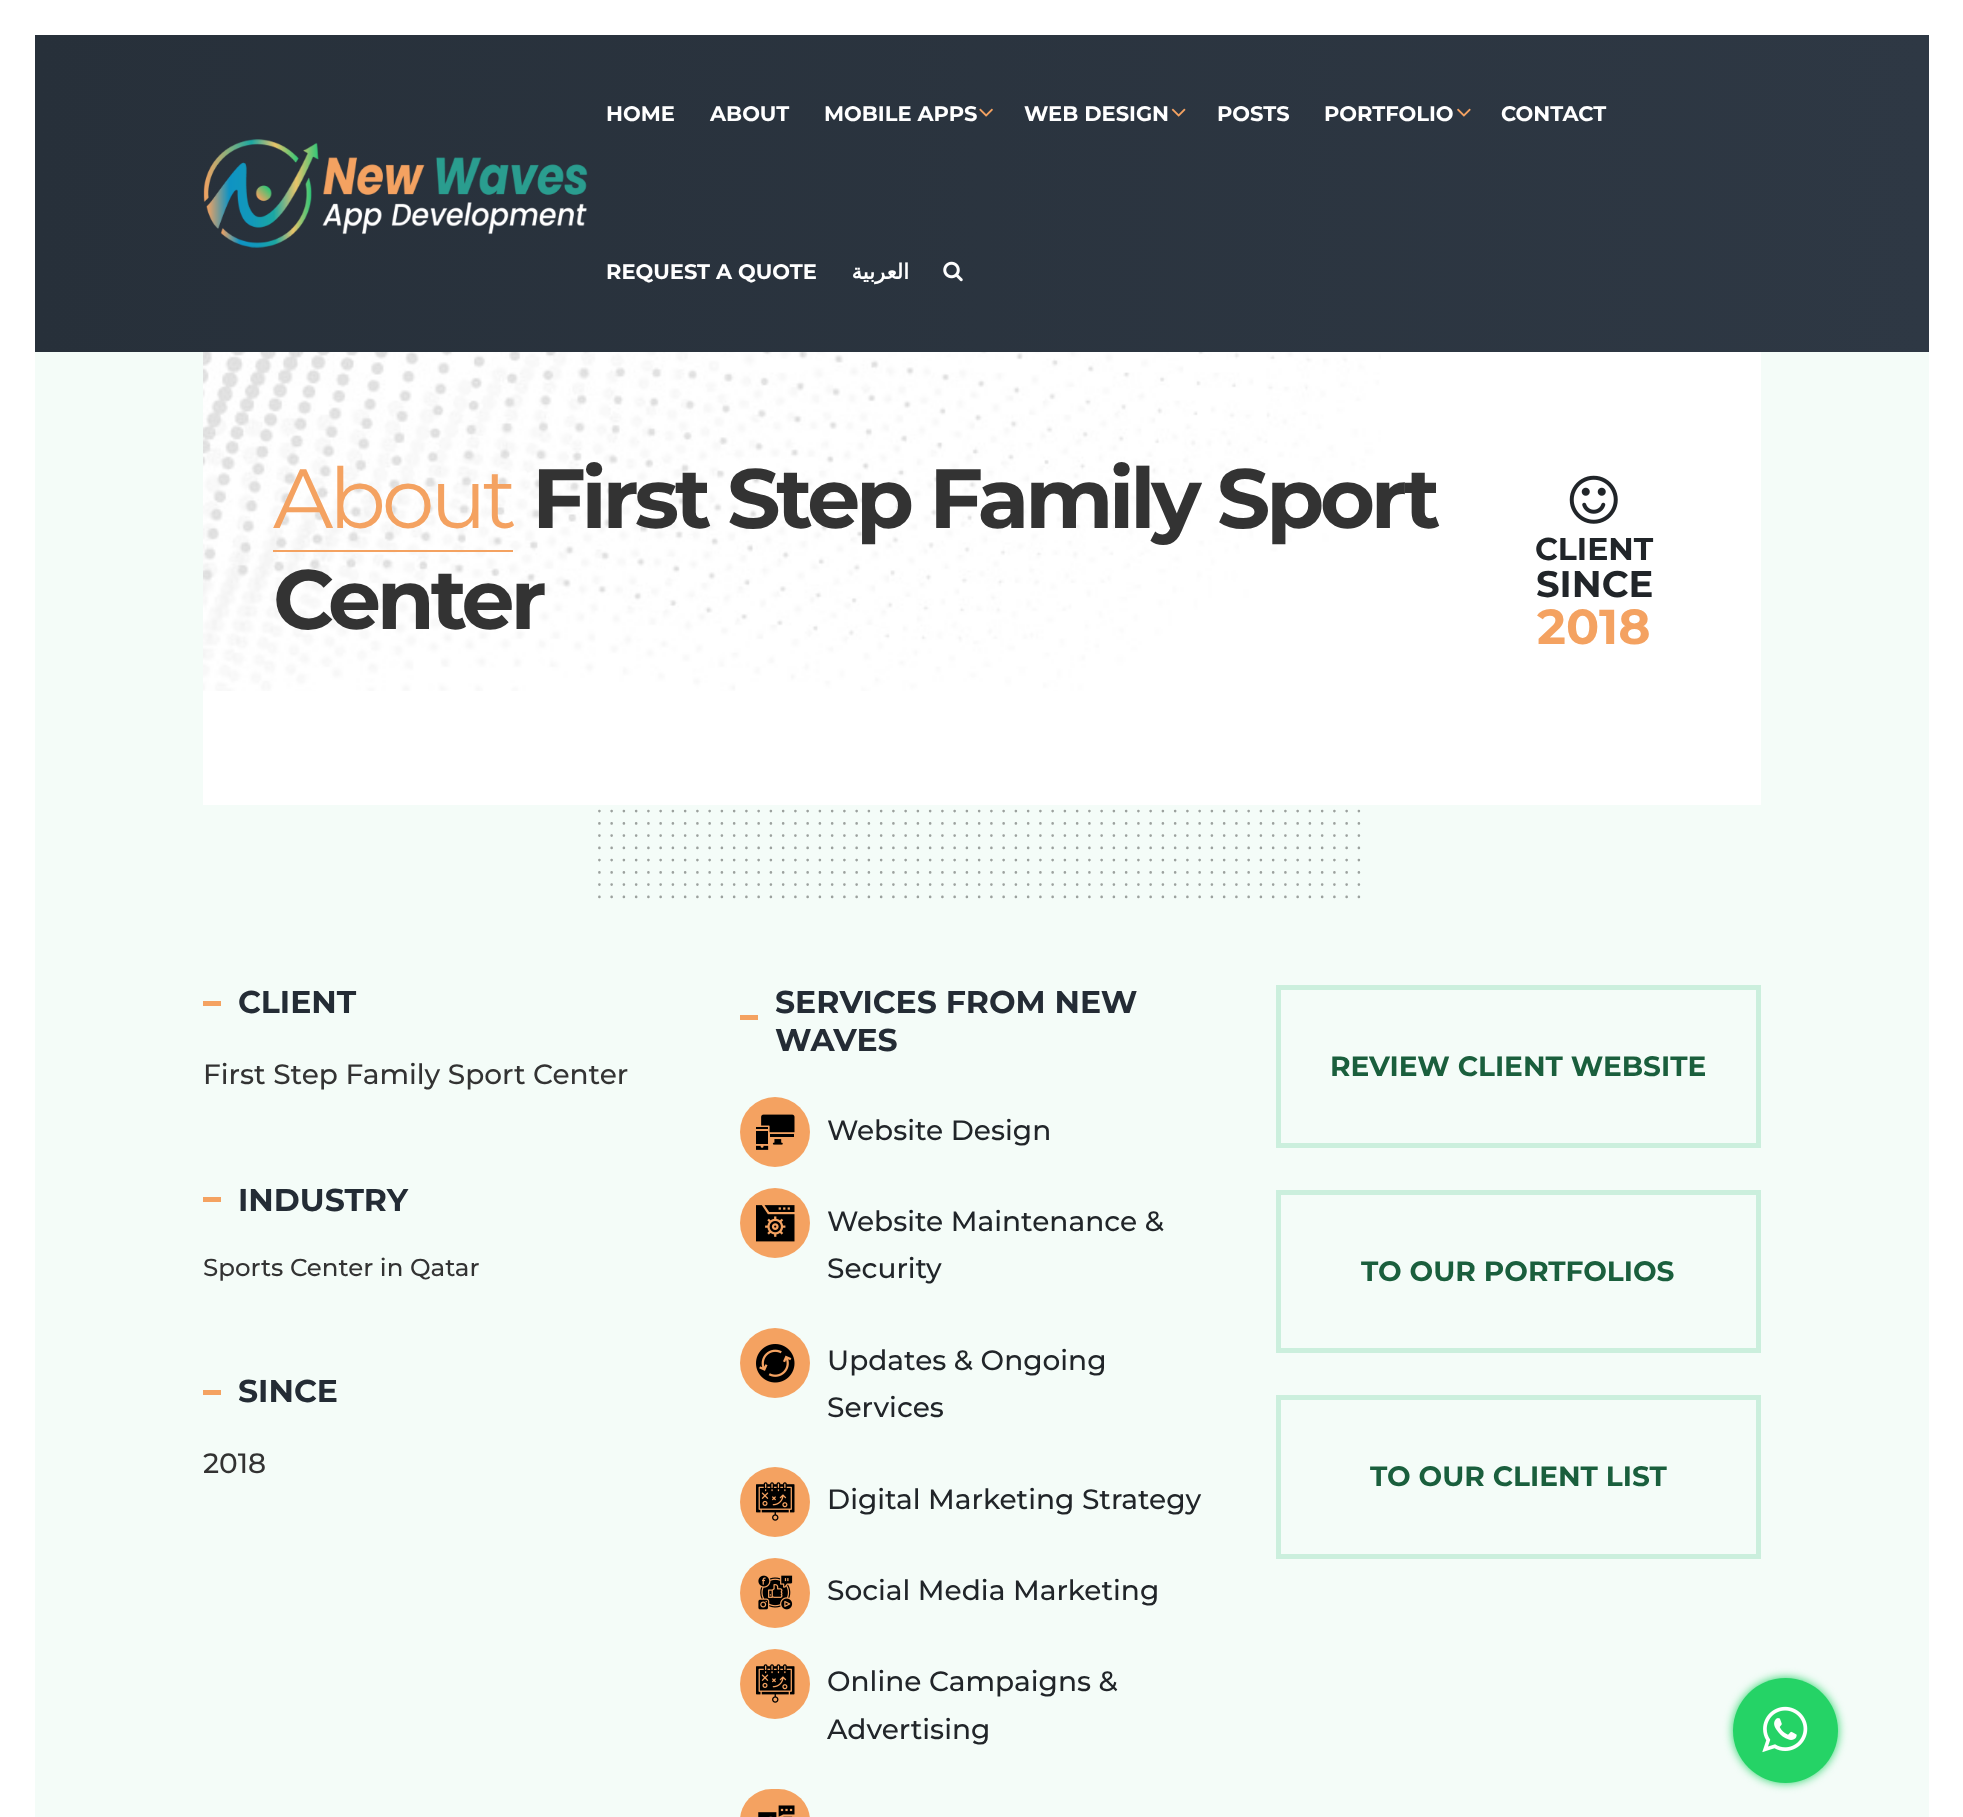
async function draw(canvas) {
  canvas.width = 1963;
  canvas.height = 1817;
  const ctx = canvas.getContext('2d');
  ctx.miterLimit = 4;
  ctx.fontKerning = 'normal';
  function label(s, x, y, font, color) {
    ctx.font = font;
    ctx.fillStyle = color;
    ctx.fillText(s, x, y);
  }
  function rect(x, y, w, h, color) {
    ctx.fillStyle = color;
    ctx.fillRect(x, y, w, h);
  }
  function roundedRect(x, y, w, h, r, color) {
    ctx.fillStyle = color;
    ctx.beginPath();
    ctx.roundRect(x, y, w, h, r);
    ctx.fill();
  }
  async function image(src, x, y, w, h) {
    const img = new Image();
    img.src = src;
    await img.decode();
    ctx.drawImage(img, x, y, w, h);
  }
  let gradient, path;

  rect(0, 0, 1963, 1817, '#fff');
  gradient = ctx.createLinearGradient(35, 193, 1929, 193);
  gradient.addColorStop(0, '#27303a');
  gradient.addColorStop(1, '#2e3844');
  ctx.fillStyle = gradient;
  ctx.fillRect(35, 35, 1894, 317);
  await image('assets/img1.png', 203, 139, 385, 109);
  label('HOME', 606, 121, 'bold 21px Montserrat', '#fff');
  label('ABOUT', 710, 121, 'bold 21px Montserrat', '#fff');
  label('MOBILE APPS', 824, 121, 'bold 21px Montserrat', '#fff');
  await image('assets/img2.png', 979, 108, 14, 9);
  label('WEB DESIGN', 1024, 121, 'bold 21px Montserrat', '#fff');
  await image('assets/img3.png', 1171, 108, 15, 9);
  label('POSTS', 1217, 121, 'bold 21px Montserrat', '#fff');
  label('PORTFOLIO', 1324, 121, 'bold 21px Montserrat', '#fff');
  await image('assets/img4.png', 1457, 108, 14, 9);
  label('CONTACT', 1501, 121, 'bold 21px Montserrat', '#fff');
  label('REQUEST A QUOTE', 606, 279, 'bold 21px Montserrat', '#fff');
  ctx.direction = 'rtl';
  label('العربية', 909, 279, 'bold 21px DejaVu Sans', '#fff');
  await image('assets/img5.png', 943, 261, 20, 21);
  rect(35, 352, 1894, 1465, '#f4fcf8');
  rect(203, 352, 1558, 453, '#fff');
  await image('assets/img6.png', 203, 352, 1178, 339);
  ctx.letterSpacing = '-4.2px';
  ctx.direction = 'ltr';
  label('About', 273, 528, '84px Montserrat', '#f4a261');
  label('First Step Family Sport', 532, 528, 'bold 84px Montserrat', '#333');
  label('Center', 273, 629, 'bold 84px Montserrat', '#333');
  rect(273, 550, 240, 2, '#f4a261');
  await image('assets/img7.png', 1569, 475, 49, 49);
  ctx.letterSpacing = '0px';
  label('CLIENT', 1535, 560, 'bold 31.5px Montserrat', '#212529');
  label('SINCE', 1536, 597, 'bold 37px Montserrat', '#212529');
  label('2018', 1537, 644, 'bold 49px Montserrat', '#f4a261');
  path = new Path2D('M599.4 811.1H1359.2');
  ctx.strokeStyle = '#c3cac6';
  ctx.lineWidth = 2.6;
  ctx.lineCap = 'round';
  ctx.setLineDash([0, 12.25]);
  ctx.stroke(path);
  path = new Path2D('M599.4 823.4H1359.2');
  ctx.stroke(path);
  path = new Path2D('M599.4 835.6H1359.2');
  ctx.stroke(path);
  path = new Path2D('M599.4 847.9H1359.2');
  ctx.stroke(path);
  path = new Path2D('M599.4 860.1H1359.2');
  ctx.stroke(path);
  path = new Path2D('M599.4 872.4H1359.2');
  ctx.stroke(path);
  path = new Path2D('M599.4 884.6H1359.2');
  ctx.stroke(path);
  path = new Path2D('M599.4 896.9H1359.2');
  ctx.stroke(path);
  path = new Path2D('M599.4 811.1H1359.2');
  ctx.strokeStyle = '#00000033';
  ctx.stroke(path);
  path = new Path2D('M599.4 823.4H1359.2');
  ctx.stroke(path);
  path = new Path2D('M599.4 835.6H1359.2');
  ctx.stroke(path);
  path = new Path2D('M599.4 847.9H1359.2');
  ctx.stroke(path);
  path = new Path2D('M599.4 860.1H1359.2');
  ctx.stroke(path);
  path = new Path2D('M599.4 872.4H1359.2');
  ctx.stroke(path);
  path = new Path2D('M599.4 884.6H1359.2');
  ctx.stroke(path);
  path = new Path2D('M599.4 896.9H1359.2');
  ctx.stroke(path);
  rect(203, 1001, 18, 5, '#f4a261');
  label('CLIENT', 238, 1013, 'bold 31.5px Montserrat', '#242c35');
  label('First Step Family Sport Center', 203, 1084, '500 28px Montserrat', '#333');
  rect(203, 1197, 18, 5, '#f4a261');
  label('INDUSTRY', 238, 1211, 'bold 31.5px Montserrat', '#242c35');
  label('Sports Center in Qatar', 203, 1276, '500 24.5px Montserrat', '#333');
  rect(203, 1390, 18, 5, '#f4a261');
  label('SINCE', 238, 1402, 'bold 31.5px Montserrat', '#242c35');
  label('2018', 203, 1473, '500 28px Montserrat', '#333');
  label('SERVICES FROM NEW', 775, 1013, 'bold 31.5px Montserrat', '#242c35');
  rect(740, 1015, 18, 5, '#f4a261');
  label('WAVES', 775, 1051, 'bold 31.5px Montserrat', '#242c35');
  ctx.fillStyle = '#f4a261';
  ctx.beginPath();
  ctx.arc(775, 1132, 35, 0, 2 * Math.PI);
  ctx.fill();
  await image('assets/img8.png', 756, 1114, 39, 36);
  label('Website Design', 827, 1140, '500 28px Montserrat', '#212529');
  ctx.fillStyle = '#f4a261';
  ctx.beginPath();
  ctx.arc(775, 1223, 35, 0, 2 * Math.PI);
  ctx.fill();
  await image('assets/img9.png', 756, 1205, 39, 37);
  label('Website Maintenance &', 827, 1231, '500 28px Montserrat', '#212529');
  label('Security', 827, 1278, '500 28px Montserrat', '#212529');
  ctx.fillStyle = '#f4a261';
  ctx.beginPath();
  ctx.arc(775, 1363, 35, 0, 2 * Math.PI);
  ctx.fill();
  await image('assets/img10.png', 756, 1344, 39, 39);
  label('Updates & Ongoing', 827, 1370, '500 28px Montserrat', '#212529');
  label('Services', 827, 1417, '500 28px Montserrat', '#212529');
  ctx.fillStyle = '#f4a261';
  ctx.beginPath();
  ctx.arc(775, 1502, 35, 0, 2 * Math.PI);
  ctx.fill();
  await image('assets/img11.png', 756, 1482, 39, 39);
  label('Digital Marketing Strategy', 827, 1509, '500 28px Montserrat', '#212529');
  ctx.fillStyle = '#f4a261';
  ctx.beginPath();
  ctx.arc(775, 1593, 35, 0, 2 * Math.PI);
  ctx.fill();
  await image('assets/img12.png', 758, 1575, 35, 35);
  label('Social Media Marketing', 827, 1600, '500 28px Montserrat', '#212529');
  ctx.fillStyle = '#f4a261';
  ctx.beginPath();
  ctx.arc(775, 1684, 35, 0, 2 * Math.PI);
  ctx.fill();
  await image('assets/img11.png', 756, 1664, 39, 39);
  label('Online Campaigns &', 827, 1691, '500 28px Montserrat', '#212529');
  label('Advertising', 827, 1739, '500 28px Montserrat', '#212529');
  roundedRect(740, 1789, 70, 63, 35, '#f4a261');
  await image('assets/img13.png', 758, 1805, 37, 12);
  ctx.strokeStyle = '#cbefdd';
  ctx.lineWidth = 5;
  ctx.setLineDash([]);
  ctx.strokeRect(1278.5, 987.5, 480, 158);
  label('REVIEW CLIENT WEBSITE', 1330, 1076, 'bold 28px Montserrat', '#1a5f3d');
  ctx.strokeRect(1278.5, 1192.5, 480, 158);
  label('TO OUR PORTFOLIOS', 1361, 1281, 'bold 28px Montserrat', '#1a5f3d');
  ctx.strokeRect(1278.5, 1397.5, 480, 159);
  label('TO OUR CLIENT LIST', 1370, 1486, 'bold 28px Montserrat', '#1a5f3d');
  ctx.fillStyle = '#25d366';
  ctx.filter = 'blur(5px)';
  ctx.beginPath();
  ctx.roundRect(1733, 1678, 105, 105, 52.5);
  ctx.fill();
  ctx.filter = 'none';
  ctx.beginPath();
  ctx.arc(1785.5, 1730.5, 52.5, 0, 2 * Math.PI);
  ctx.fill();
  await image('assets/img14.png', 1762, 1706, 46, 47);
}

draw(document.querySelector('canvas'));
